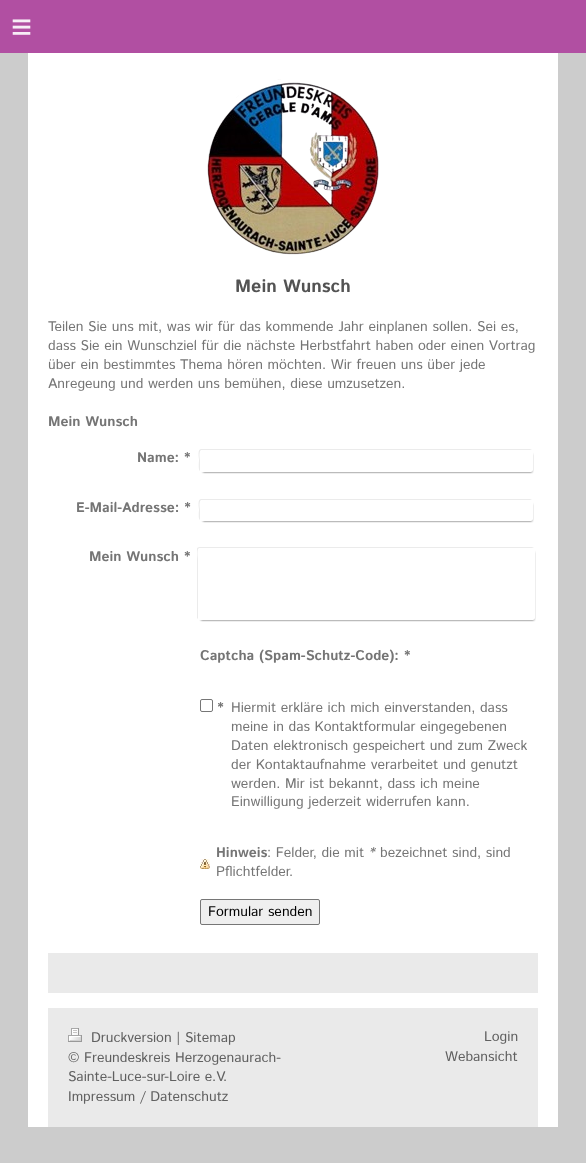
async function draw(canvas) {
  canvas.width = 586;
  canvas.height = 1163;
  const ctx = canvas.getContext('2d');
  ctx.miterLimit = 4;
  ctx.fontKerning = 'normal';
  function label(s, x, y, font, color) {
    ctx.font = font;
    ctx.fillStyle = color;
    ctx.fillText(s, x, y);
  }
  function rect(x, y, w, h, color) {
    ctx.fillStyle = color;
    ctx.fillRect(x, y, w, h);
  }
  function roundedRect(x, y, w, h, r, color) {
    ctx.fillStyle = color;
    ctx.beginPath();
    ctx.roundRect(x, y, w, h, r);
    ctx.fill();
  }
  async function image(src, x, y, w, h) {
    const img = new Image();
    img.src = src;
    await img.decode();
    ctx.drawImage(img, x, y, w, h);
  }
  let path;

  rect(0, 0, 586, 1163, '#ccc');
  rect(0, 0, 586, 53, '#b14fa2');
  ctx.letterSpacing = '10px';
  label('≡', 11, 39, '36px Liberation Sans', '#f7edf6');
  rect(28, 53, 530, 1074, '#fff');
  await image('assets/img1.png', 207, 79, 172, 176);
  ctx.letterSpacing = '0px';
  label('Mein Wunsch', 235, 292, 'bold 18px Istok Web', '#535353');
  label('Teilen Sie uns mit, was wir für das kommende Jahr einplanen sollen. Sei es,', 48, 331, '14px Istok Web', '#757575');
  label('dass Sie ein Wunschziel für die nächste Herbstfahrt haben oder einen Vortrag', 48, 350, '14px Istok Web', '#757575');
  label('über ein bestimmtes Thema hören möchten. Wir freuen uns über jede', 48, 369, '14px Istok Web', '#757575');
  label('Anregeung und werden uns bemühen, diese umzusetzen.', 48, 388, '14px Istok Web', '#757575');
  label('Mein Wunsch', 48, 426, 'bold 14px Istok Web', '#757575');
  ctx.fillStyle = '#ebebeb';
  path = new Path2D('M201 449C197 449 199 458 199 460C199 462 198 470 200 471V461C200 459 198 450 202 450H532L530 449Z');
  ctx.fill(path);
  ctx.fillStyle = '#000000cc';
  ctx.filter = 'blur(1px)';
  ctx.beginPath();
  ctx.rect(203, 454, 329, 18);
  ctx.fill();
  ctx.filter = 'none';
  label('Name: *', 137, 462, 'bold 14px Istok Web', '#757575');
  roundedRect(200, 450, 333, 22, 2, '#fff');
  ctx.fillStyle = '#ebebeb';
  path = new Path2D('M201 499C197 499 199 508 199 510C199 511 198 519 200 520V510C200 509 198 500 202 500H532L530 499Z');
  ctx.fill(path);
  ctx.fillStyle = '#000000cc';
  ctx.filter = 'blur(1px)';
  ctx.beginPath();
  ctx.rect(203, 504, 329, 17);
  ctx.fill();
  ctx.filter = 'none';
  label('E-Mail-Adresse: *', 76, 512, 'bold 14px Istok Web', '#757575');
  roundedRect(200, 500, 333, 21, 2, '#fff');
  ctx.fillStyle = '#ebebeb';
  path = new Path2D('M199 547L197 548V618L198 619V561C198 557 196 548 200 548H534L532 547Z');
  ctx.fill(path);
  ctx.fillStyle = '#000000cc';
  ctx.filter = 'blur(1px)';
  ctx.beginPath();
  ctx.rect(201, 552, 333, 68);
  ctx.fill();
  ctx.filter = 'none';
  label('Mein Wunsch *', 89, 561, 'bold 14px Istok Web', '#757575');
  roundedRect(198, 548, 337, 72, 2, '#fff');
  label('Captcha (Spam-Schutz-Code): *', 200, 660, 'bold 14px Istok Web', '#757575');
  ctx.beginPath();
  ctx.roundRect(200.5, 699.5, 12, 12, 1.5);
  ctx.strokeStyle = '#767676';
  ctx.stroke();
  label('*', 217, 712, 'bold 14px Istok Web', '#757575');
  label('Hiermit erkläre ich mich einverstanden, dass', 231, 712, '14px Istok Web', '#757575');
  label('meine in das Kontaktformular eingegebenen', 231, 731, '14px Istok Web', '#757575');
  label('Daten elektronisch gespeichert und zum Zweck', 231, 750, '14px Istok Web', '#757575');
  label('der Kontaktaufnahme verarbeitet und genutzt', 231, 769, '14px Istok Web', '#757575');
  label('werden. Mir ist bekannt, dass ich meine', 231, 788, '14px Istok Web', '#757575');
  label('Einwilligung jederzeit widerrufen kann.', 231, 806, '14px Istok Web', '#757575');
  await image('assets/img2.png', 200, 859, 10, 10);
  label('Hinweis', 216, 857, 'bold 14px Istok Web', '#757575');
  label(': Felder, die mit', 267, 857, '14px Istok Web', '#757575');
  label('*', 369, 857, 'italic 14px Istok Web', '#757575');
  label('bezeichnet sind, sind', 380, 857, '14px Istok Web', '#757575');
  label('Pflichtfelder.', 216, 876, '14px Istok Web', '#757575');
  ctx.fillStyle = '#efefef';
  ctx.beginPath();
  ctx.roundRect(200.5, 899.5, 119, 25, 1.5);
  ctx.fill();
  ctx.stroke();
  label('Formular senden', 208, 916, '14px Istok Web', '#000');
  rect(48, 953, 490, 40, '#eaeaea');
  rect(48, 1008, 490, 119, '#eaeaea');
  await image('assets/img3.png', 68, 1028, 14, 14);
  label('Druckversion | Sitemap', 91, 1042, '14px Istok Web', '#606060');
  label('© Freundeskreis Herzogenaurach-', 68, 1062, '14px Istok Web', '#606060');
  label('Sainte-Luce-sur-Loire e.V.', 68, 1081, '14px Istok Web', '#606060');
  label('Impressum / Datenschutz', 68, 1101, '14px Istok Web', '#606060');
  label('Login', 484, 1041, '14px Istok Web', '#606060');
  label('Webansicht', 445, 1061, '14px Istok Web', '#606060');
}

draw(document.querySelector('canvas'));
